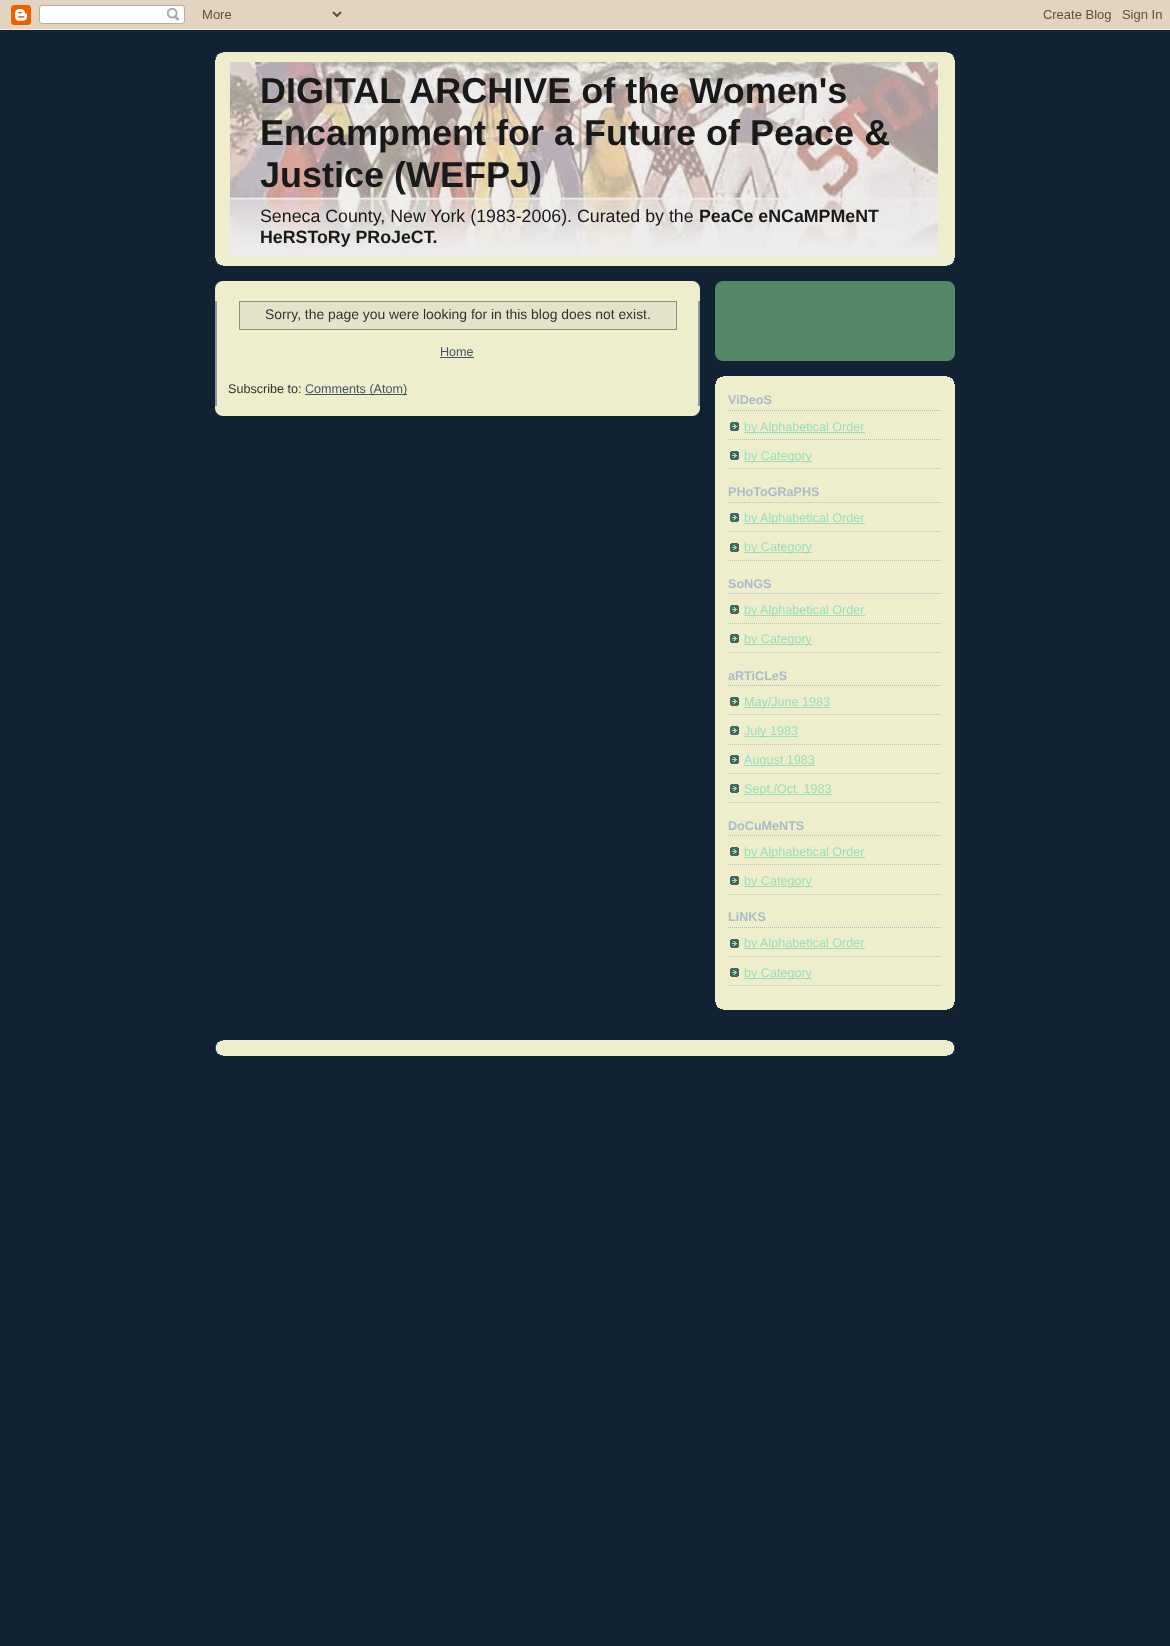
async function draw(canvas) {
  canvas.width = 1170;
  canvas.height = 1646;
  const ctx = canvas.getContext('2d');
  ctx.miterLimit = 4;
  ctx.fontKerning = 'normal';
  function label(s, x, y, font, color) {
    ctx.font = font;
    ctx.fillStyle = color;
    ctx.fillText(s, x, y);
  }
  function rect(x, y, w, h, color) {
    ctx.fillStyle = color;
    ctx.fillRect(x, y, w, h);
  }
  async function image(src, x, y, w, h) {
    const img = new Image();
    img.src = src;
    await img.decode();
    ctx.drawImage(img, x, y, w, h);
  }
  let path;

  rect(0, 0, 1170, 1646, '#123');
  await image('assets/img1.png', 0, 0, 1170, 30);
  rect(215, 52, 740, 214, '#eec');
  await image('assets/img2.png', 215, 52, 740, 8);
  await image('assets/img3.png', 215, 258, 740, 8);
  await image('assets/img4.png', 230, 62, 708, 194);
  label('DIGITAL ARCHIVE of the Women\'s', 260, 103, 'bold 36px Liberation Sans', '#191919');
  label('Encampment for a Future of Peace &', 260, 145, 'bold 36px Liberation Sans', '#191919');
  label('Justice (WEFPJ)', 260, 187, 'bold 36px Liberation Sans', '#191919');
  label('Seneca County, New York (1983-2006). Curated by the', 260, 222, '17.8px Liberation Sans', '#191919');
  label('PeaCe eNCaMPMeNT', 699, 222, 'bold 17.8px Liberation Sans', '#191919');
  label('HeRSToRy PRoJeCT.', 260, 243, 'bold 17.8px Liberation Sans', '#191919');
  rect(215, 281, 485, 135, '#eec');
  await image('assets/img5.png', 215, 408, 485, 8);
  await image('assets/img6.png', 215, 281, 485, 8);
  await image('assets/img7.png', 215, 301, 485, 105);
  ctx.strokeStyle = '#8f8f7a';
  ctx.strokeRect(239.5, 301.5, 437, 28);
  rect(240, 302, 436, 27, '#e3e3cc');
  label('Sorry, the page you were looking for in this blog does not exist.', 265, 319, '13.9px Liberation Sans', '#333');
  label('Home', 440, 356, '12.6px Liberation Sans', '#456');
  rect(440, 357, 34, 1, '#456');
  label('Subscribe to:', 228, 393, '12.6px Liberation Sans', '#333');
  rect(305, 394, 102, 1, '#456');
  label('Comments (Atom)', 305, 393, '12.6px Liberation Sans', '#456');
  rect(715, 281, 240, 80, '#586');
  await image('assets/img8.png', 715, 353, 240, 8);
  await image('assets/img9.png', 715, 281, 240, 8);
  rect(715, 376, 240, 634, '#eec');
  await image('assets/img10.png', 715, 376, 240, 8);
  await image('assets/img11.png', 715, 1002, 240, 8);
  path = new Path2D('M728 410.5H942');
  ctx.strokeStyle = '#abc';
  ctx.setLineDash([1, 1]);
  ctx.stroke(path);
  label('ViDeoS', 728, 404, 'bold 12.6px Liberation Sans', '#abc');
  await image('assets/img12.png', 730, 422, 9, 9);
  path = new Path2D('M728 439.5H942');
  ctx.strokeStyle = '#bbb';
  ctx.stroke(path);
  rect(744, 432, 121, 1, '#9db');
  label('by Alphabetical Order', 744, 431, '12.6px Liberation Sans', '#9db');
  await image('assets/img12.png', 730, 451, 9, 9);
  path = new Path2D('M728 468.5H942');
  ctx.stroke(path);
  rect(744, 461, 68, 1, '#9db');
  label('by Category', 744, 460, '12.6px Liberation Sans', '#9db');
  path = new Path2D('M728 502.5H942');
  ctx.strokeStyle = '#abc';
  ctx.stroke(path);
  label('PHoToGRaPHS', 728, 496, 'bold 12.6px Liberation Sans', '#abc');
  await image('assets/img12.png', 730, 513, 9, 9);
  path = new Path2D('M728 531.5H942');
  ctx.strokeStyle = '#bbb';
  ctx.stroke(path);
  rect(744, 523, 121, 1, '#9db');
  label('by Alphabetical Order', 744, 522, '12.6px Liberation Sans', '#9db');
  await image('assets/img12.png', 730, 543, 9, 9);
  path = new Path2D('M728 560.5H942');
  ctx.stroke(path);
  rect(744, 552, 68, 1, '#9db');
  label('by Category', 744, 551, '12.6px Liberation Sans', '#9db');
  path = new Path2D('M728 593.5H942');
  ctx.strokeStyle = '#abc';
  ctx.stroke(path);
  label('SoNGS', 728, 588, 'bold 12.6px Liberation Sans', '#abc');
  await image('assets/img12.png', 730, 605, 9, 9);
  path = new Path2D('M728 623.5H942');
  ctx.strokeStyle = '#bbb';
  ctx.stroke(path);
  rect(744, 615, 121, 1, '#9db');
  label('by Alphabetical Order', 744, 614, '12.6px Liberation Sans', '#9db');
  await image('assets/img12.png', 730, 634, 9, 9);
  path = new Path2D('M728 652.5H942');
  ctx.stroke(path);
  rect(744, 644, 68, 1, '#9db');
  label('by Category', 744, 643, '12.6px Liberation Sans', '#9db');
  path = new Path2D('M728 685.5H942');
  ctx.strokeStyle = '#abc';
  ctx.stroke(path);
  label('aRTiCLeS', 728, 680, 'bold 12.6px Liberation Sans', '#abc');
  await image('assets/img12.png', 730, 697, 9, 9);
  path = new Path2D('M728 714.5H942');
  ctx.strokeStyle = '#bbb';
  ctx.stroke(path);
  rect(744, 707, 86, 1, '#9db');
  label('May/June 1983', 744, 706, '12.6px Liberation Sans', '#9db');
  await image('assets/img12.png', 730, 726, 9, 9);
  path = new Path2D('M728 744.5H942');
  ctx.stroke(path);
  rect(744, 736, 54, 1, '#9db');
  label('July 1983', 744, 735, '12.6px Liberation Sans', '#9db');
  await image('assets/img12.png', 730, 755, 9, 9);
  path = new Path2D('M728 773.5H942');
  ctx.stroke(path);
  rect(744, 765, 71, 1, '#9db');
  label('August 1983', 744, 764, '12.6px Liberation Sans', '#9db');
  await image('assets/img12.png', 730, 784, 9, 9);
  path = new Path2D('M728 802.5H942');
  ctx.stroke(path);
  rect(744, 794, 88, 1, '#9db');
  label('Sept./Oct. 1983', 744, 793, '12.6px Liberation Sans', '#9db');
  path = new Path2D('M728 835.5H942');
  ctx.strokeStyle = '#abc';
  ctx.stroke(path);
  label('DoCuMeNTS', 728, 830, 'bold 12.6px Liberation Sans', '#abc');
  await image('assets/img12.png', 730, 847, 9, 9);
  path = new Path2D('M728 864.5H942');
  ctx.strokeStyle = '#bbb';
  ctx.stroke(path);
  rect(744, 857, 121, 1, '#9db');
  label('by Alphabetical Order', 744, 856, '12.6px Liberation Sans', '#9db');
  await image('assets/img12.png', 730, 876, 9, 9);
  path = new Path2D('M728 894.5H942');
  ctx.stroke(path);
  rect(744, 886, 68, 1, '#9db');
  label('by Category', 744, 885, '12.6px Liberation Sans', '#9db');
  path = new Path2D('M728 927.5H942');
  ctx.strokeStyle = '#abc';
  ctx.stroke(path);
  label('LiNKS', 728, 921, 'bold 12.6px Liberation Sans', '#abc');
  await image('assets/img12.png', 730, 939, 9, 9);
  path = new Path2D('M728 956.5H942');
  ctx.strokeStyle = '#bbb';
  ctx.stroke(path);
  rect(744, 948, 121, 1, '#9db');
  label('by Alphabetical Order', 744, 947, '12.6px Liberation Sans', '#9db');
  await image('assets/img12.png', 730, 968, 9, 9);
  path = new Path2D('M728 985.5H942');
  ctx.stroke(path);
  rect(744, 978, 68, 1, '#9db');
  label('by Category', 744, 977, '12.6px Liberation Sans', '#9db');
  rect(216, 1040, 738, 16, '#eec');
  await image('assets/img2.png', 215, 1040, 740, 8);
  await image('assets/img3.png', 215, 1048, 740, 8);
}

draw(document.querySelector('canvas'));
